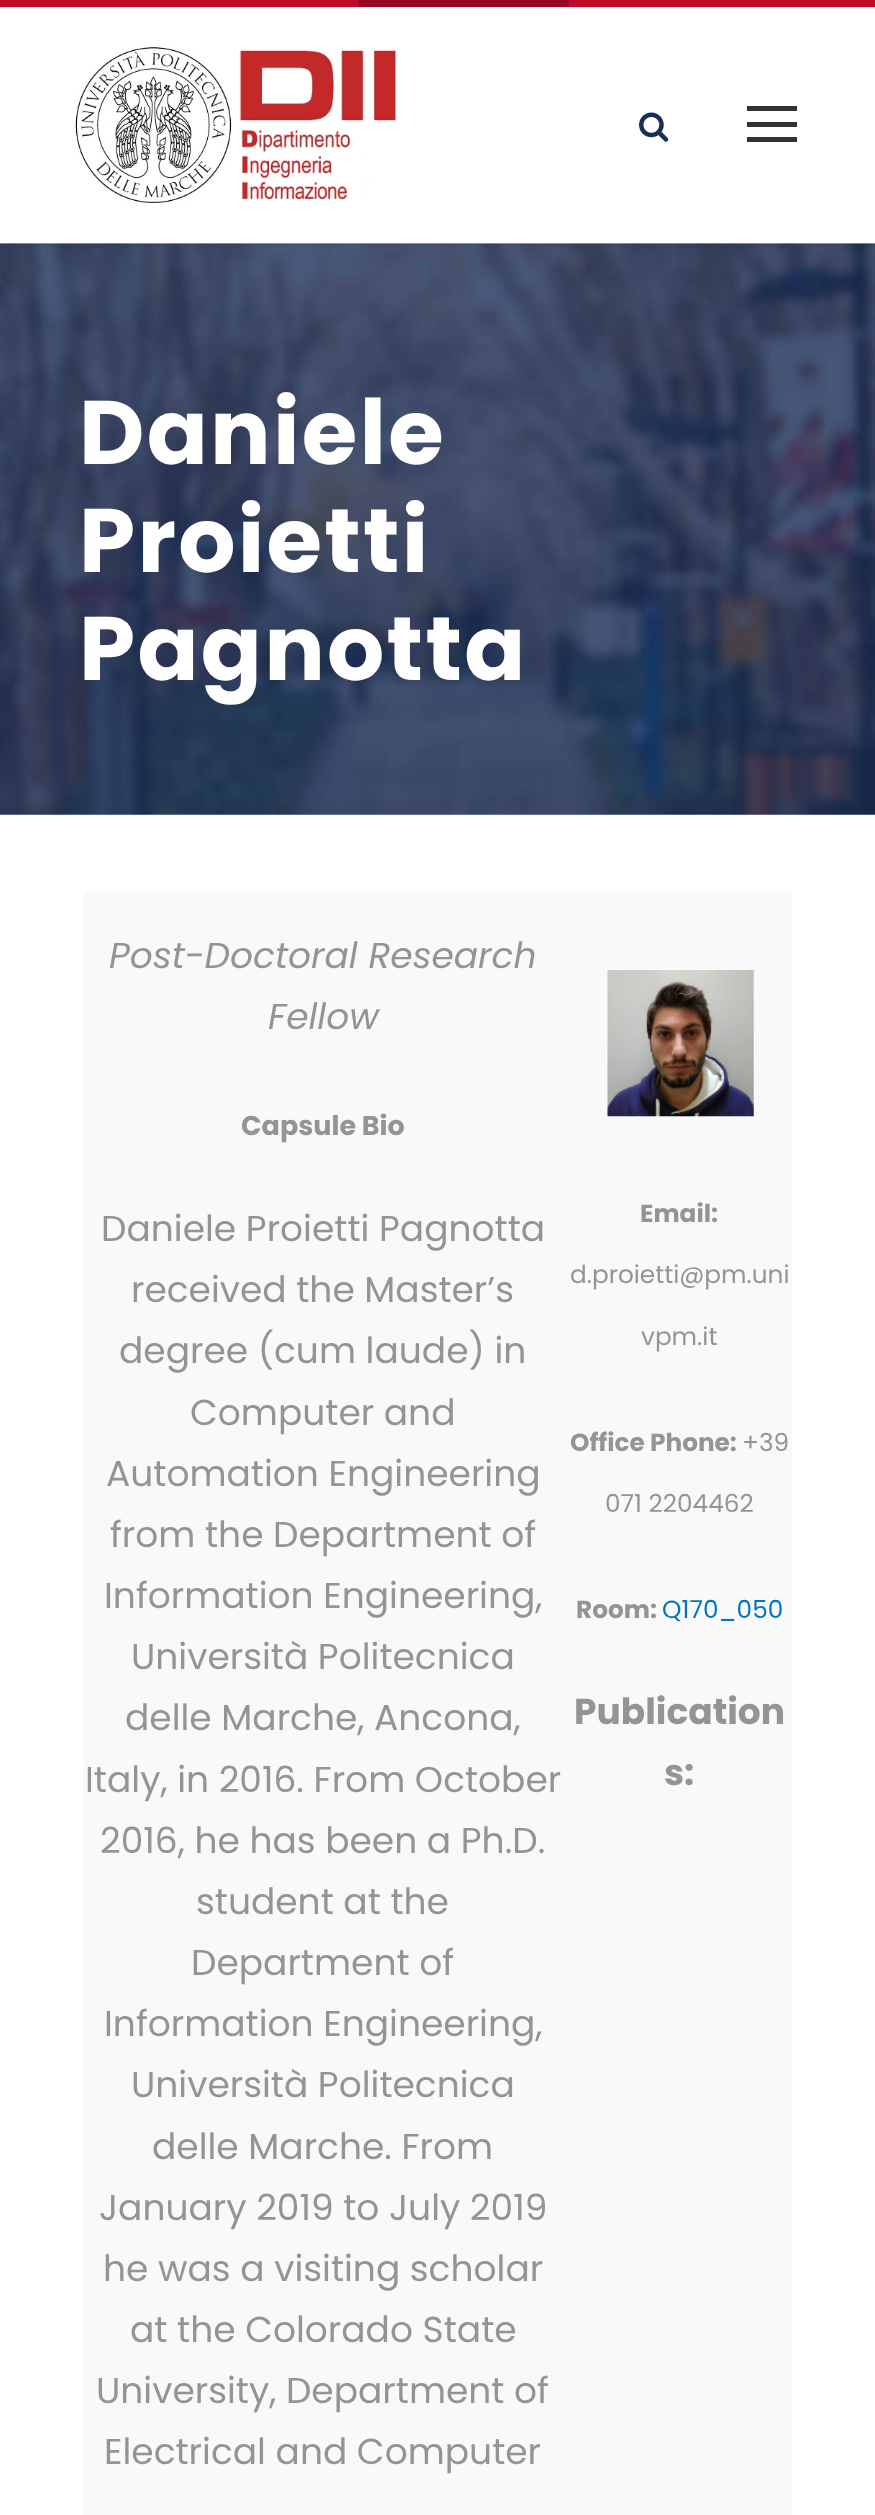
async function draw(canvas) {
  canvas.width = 875;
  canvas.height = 2515;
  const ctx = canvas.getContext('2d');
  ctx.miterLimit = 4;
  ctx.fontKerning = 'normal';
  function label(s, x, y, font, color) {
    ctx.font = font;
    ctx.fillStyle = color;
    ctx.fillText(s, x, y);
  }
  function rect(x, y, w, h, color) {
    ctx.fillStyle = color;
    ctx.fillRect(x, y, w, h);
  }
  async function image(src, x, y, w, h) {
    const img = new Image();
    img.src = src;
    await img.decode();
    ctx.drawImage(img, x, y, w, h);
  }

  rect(0, 0, 875, 2515, '#fff');
  rect(0, 0, 875, 7, '#c1092a');
  rect(358, 0, 211, 7, '#9a0722');
  await image('assets/img3.png', 0, 243, 875, 572);
  ctx.fillStyle = '#0000001a';
  ctx.filter = 'blur(2px)';
  ctx.beginPath();
  ctx.rect(0, 9, 875, 236);
  ctx.fill();
  ctx.filter = 'none';
  rect(0, 7, 875, 236, '#fff');
  await image('assets/img1.png', 75, 47, 322, 157);
  await image('assets/img2.png', 639, 112, 30, 30);
  rect(747, 106, 50, 5, '#333');
  rect(747, 122, 50, 5, '#333');
  rect(747, 137, 50, 5, '#333');
  ctx.letterSpacing = '2.25px';
  label('Daniele', 79, 464, 'bold 90px Poppins', '#fff');
  label('Proietti', 79, 572, 'bold 90px Poppins', '#fff');
  label('Pagnotta', 79, 680, 'bold 90px Poppins', '#fff');
  rect(83, 891, 709, 1624, '#f9f9f9');
  ctx.letterSpacing = '0px';
  label('Post-Doctoral Research', 109, 968, 'italic 36px Poppins', '#949494');
  label('Fellow', 268, 1029, 'italic 36px Poppins', '#949494');
  label('Capsule Bio', 241, 1135, 'bold 27px Poppins', '#949494');
  label('Daniele Proietti Pagnotta', 101, 1241, '36px Poppins', '#949494');
  label('received the Master’s', 131, 1302, '36px Poppins', '#949494');
  label('degree (cum laude) in', 119, 1363, '36px Poppins', '#949494');
  label('Computer and', 190, 1425, '36px Poppins', '#949494');
  label('Automation Engineering', 106, 1486, '36px Poppins', '#949494');
  label('from the Department of', 110, 1547, '36px Poppins', '#949494');
  label('Information Engineering,', 104, 1608, '36px Poppins', '#949494');
  label('Università Politecnica', 131, 1669, '36px Poppins', '#949494');
  label('delle Marche, Ancona,', 125, 1730, '36px Poppins', '#949494');
  label('Italy, in 2016. From October', 85, 1792, '36px Poppins', '#949494');
  label('2016, he has been a Ph.D.', 100, 1853, '36px Poppins', '#949494');
  label('student at the', 196, 1914, '36px Poppins', '#949494');
  label('Department of', 191, 1975, '36px Poppins', '#949494');
  label('Information Engineering,', 104, 2036, '36px Poppins', '#949494');
  label('Università Politecnica', 131, 2097, '36px Poppins', '#949494');
  label('delle Marche. From', 152, 2159, '36px Poppins', '#949494');
  label('January 2019 to July 2019', 99, 2220, '36px Poppins', '#949494');
  label('he was a visiting scholar', 103, 2281, '36px Poppins', '#949494');
  label('at the Colorado State', 130, 2342, '36px Poppins', '#949494');
  label('University, Department of', 96, 2403, '36px Poppins', '#949494');
  label('Electrical and Computer', 104, 2464, '36px Poppins', '#949494');
  await image('assets/img4.png', 607, 970, 147, 147);
  label('Email:', 640, 1222, 'bold 24.75px Poppins', '#949494');
  label('d.proietti@pm.uni', 570, 1283, '24.75px Poppins', '#949494');
  label('vpm.it', 641, 1345, '24.75px Poppins', '#949494');
  label('Office Phone:', 570, 1451, 'bold 24.75px Poppins', '#949494');
  label('+39', 742, 1451, '24.75px Poppins', '#949494');
  label('071 2204462', 605, 1512, '24.75px Poppins', '#949494');
  label('Room:', 576, 1618, 'bold 24.75px Poppins', '#949494');
  label('Q170_050', 662, 1618, '24.75px Poppins', '#0074bd');
  label('Publication', 574, 1724, 'bold 36px Poppins', '#949494');
  label('s:', 664, 1785, 'bold 36px Poppins', '#949494');
}

draw(document.querySelector('canvas'));
